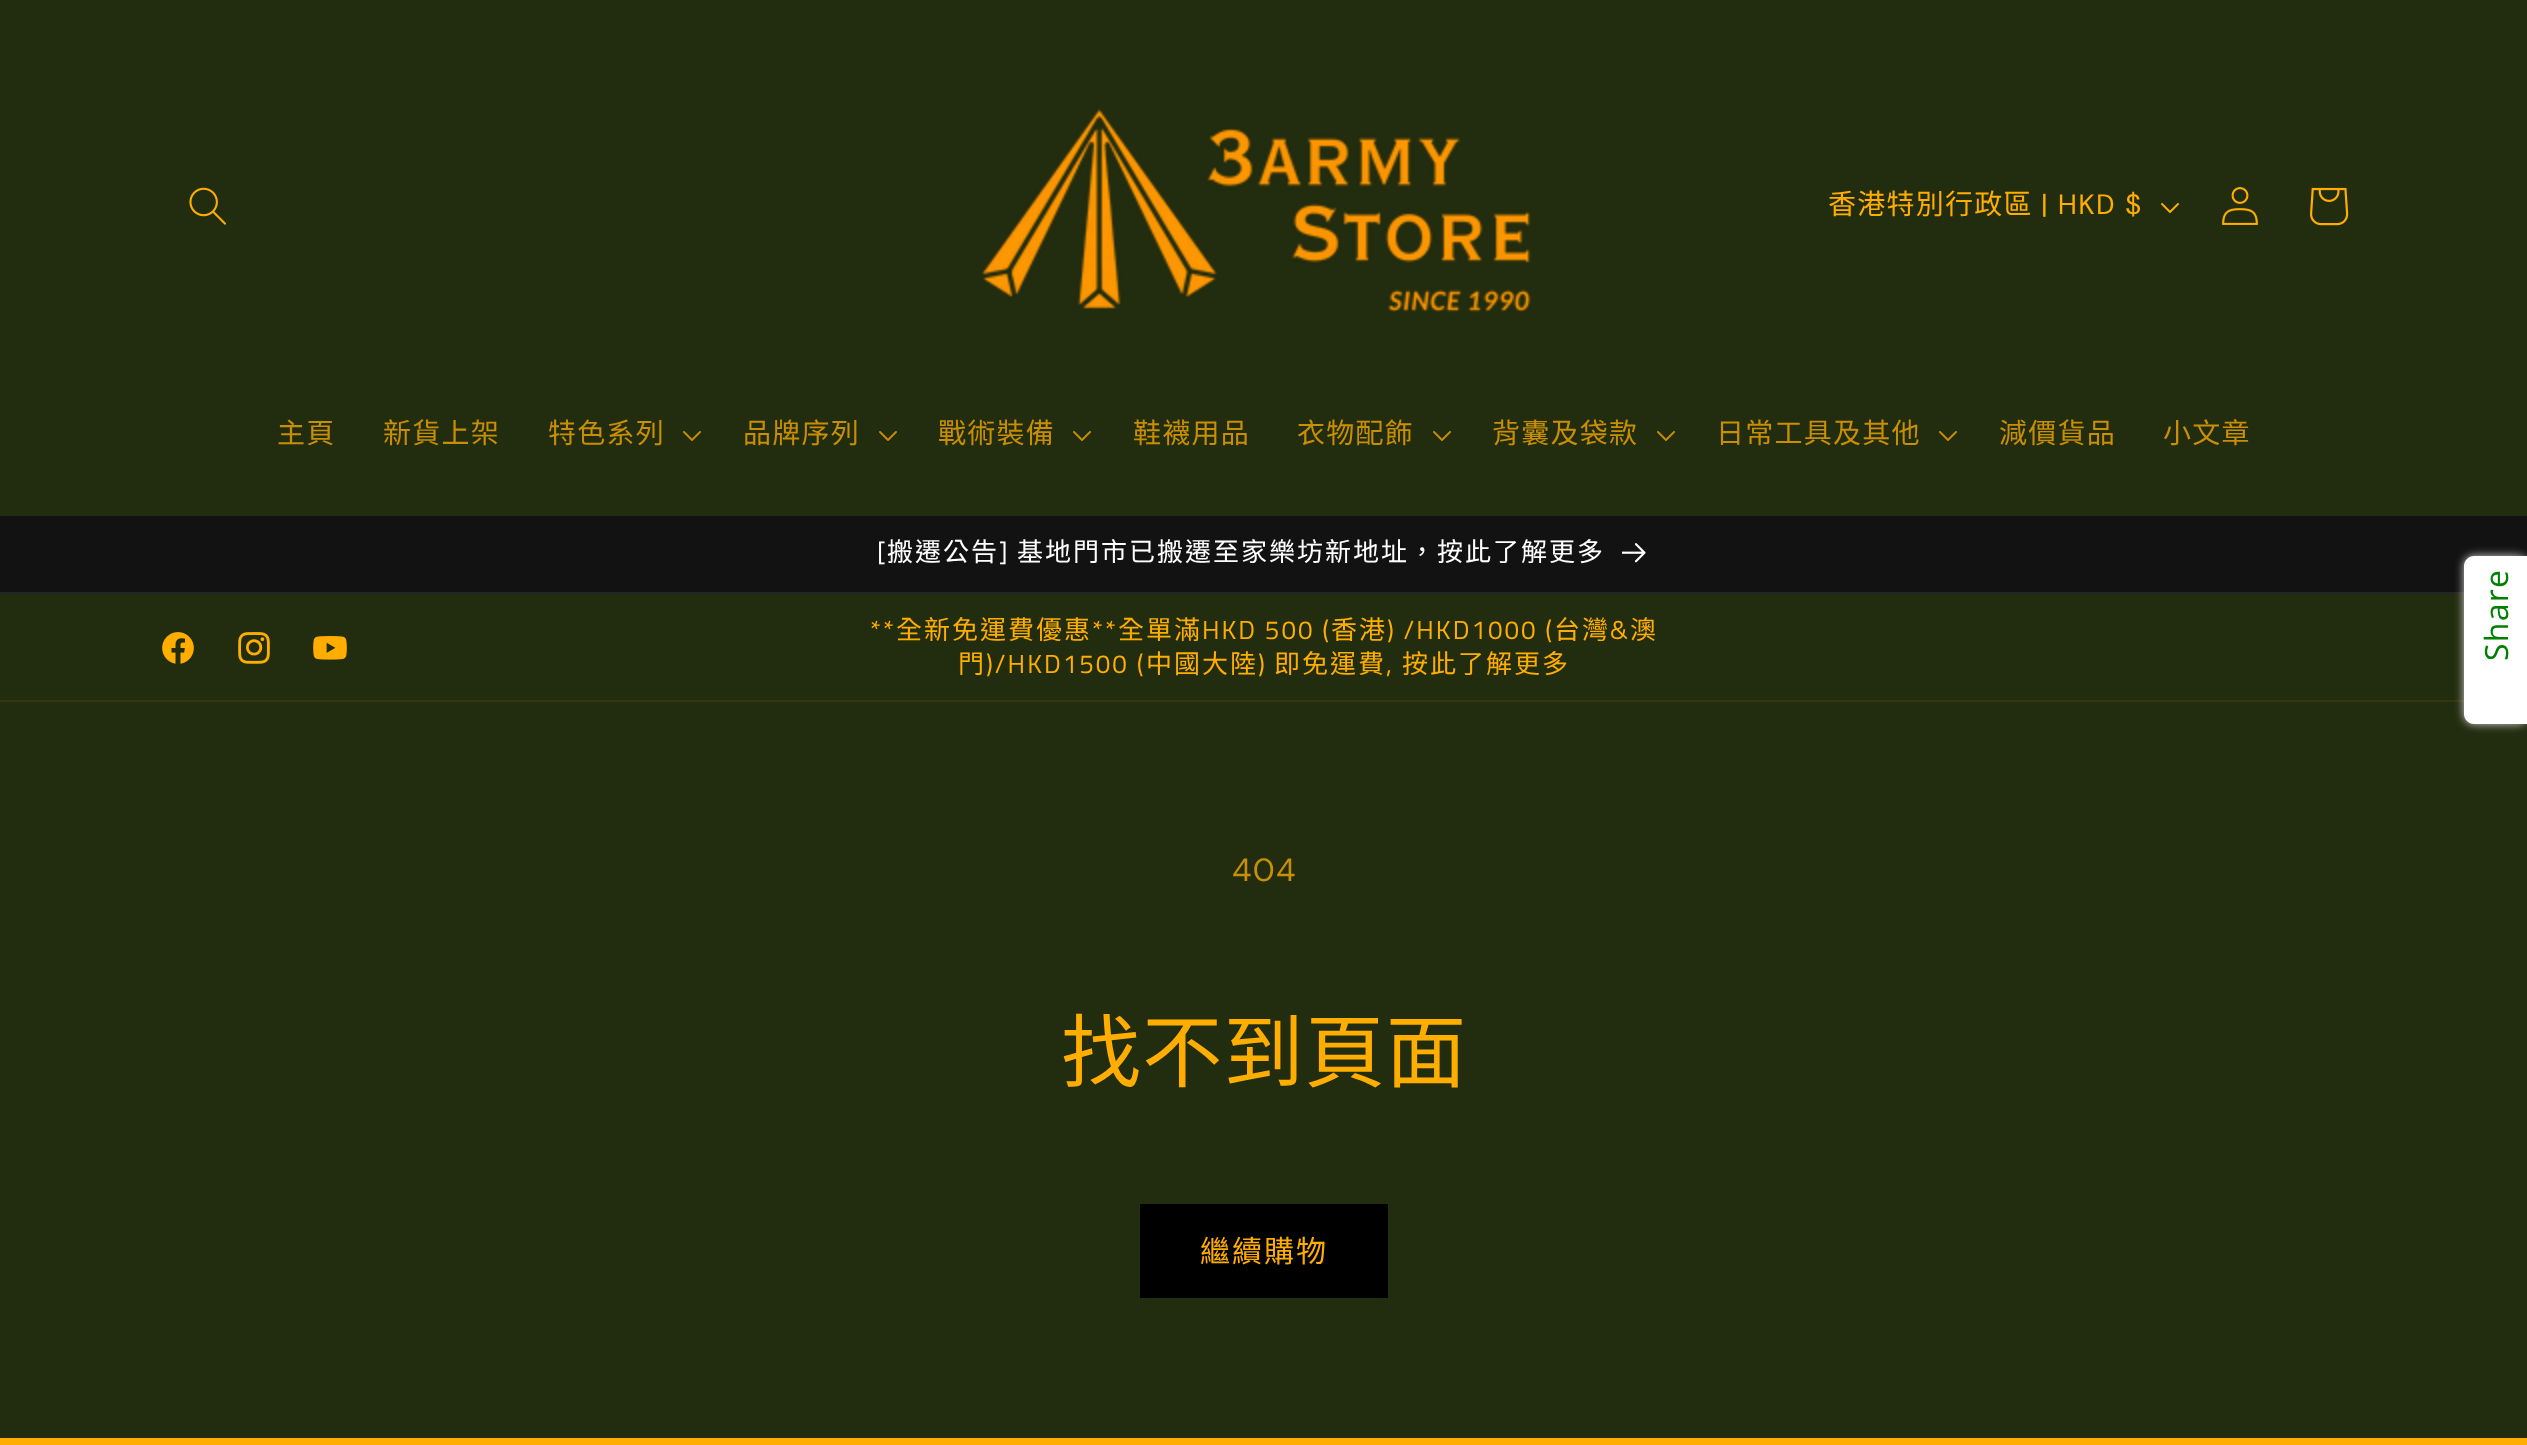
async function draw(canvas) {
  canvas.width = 2527;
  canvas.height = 1445;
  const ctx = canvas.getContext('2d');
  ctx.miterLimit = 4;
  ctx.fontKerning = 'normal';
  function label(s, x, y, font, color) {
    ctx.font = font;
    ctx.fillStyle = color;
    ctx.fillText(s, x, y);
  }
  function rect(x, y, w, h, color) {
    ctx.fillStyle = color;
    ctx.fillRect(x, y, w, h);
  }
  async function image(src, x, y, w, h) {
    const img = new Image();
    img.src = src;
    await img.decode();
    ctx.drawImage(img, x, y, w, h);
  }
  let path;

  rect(0, 0, 2527, 1445, '#222c0e');
  await image('assets/img1.png', 189, 187, 37, 38);
  await image('assets/img2.png', 981, 109, 550, 204);
  ctx.letterSpacing = '1.25px';
  label('香港特別行政區', 1828, 214, '28px Noto Sans CJK TC', '#ffae00');
  label('| HKD', 2041, 214, '28px "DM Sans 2"', '#ffae00');
  label('$', 2125, 214, '28px "DM Sans 2"', '#ffae00');
  await image('assets/img3.png', 2161, 203, 18, 10);
  await image('assets/img4.png', 2222, 187, 36, 38);
  await image('assets/img5.png', 2310, 187, 39, 39);
  label('主頁', 277, 443, '28px Noto Sans CJK TC', '#c88e04');
  label('新貨上架', 383, 443, '28px Noto Sans CJK TC', '#c88e04');
  label('特色系列', 548, 443, '28px Noto Sans CJK TC', '#c88e04');
  await image('assets/img6.png', 683, 431, 18, 10);
  label('品牌序列', 743, 443, '28px Noto Sans CJK TC', '#c88e04');
  await image('assets/img6.png', 879, 431, 18, 10);
  label('戰術裝備', 938, 443, '28px Noto Sans CJK TC', '#c88e04');
  await image('assets/img6.png', 1073, 431, 18, 10);
  label('鞋襪用品', 1133, 443, '28px Noto Sans CJK TC', '#c88e04');
  label('衣物配飾', 1297, 443, '28px Noto Sans CJK TC', '#c88e04');
  await image('assets/img6.png', 1433, 431, 18, 10);
  label('背囊及袋款', 1492, 443, '28px Noto Sans CJK TC', '#c88e04');
  await image('assets/img6.png', 1657, 431, 18, 10);
  label('日常工具及其他', 1716, 443, '28px Noto Sans CJK TC', '#c88e04');
  await image('assets/img6.png', 1939, 431, 18, 10);
  label('減價貨品', 1999, 443, '28px Noto Sans CJK TC', '#c88e04');
  label('小文章', 2163, 443, '28px Noto Sans CJK TC', '#c88e04');
  rect(0, 516, 2527, 76, '#121212');
  rect(0, 592, 2464, 2, '#252525');
  ctx.letterSpacing = '2px';
  label('[', 877, 561, '26px Titillium Web', '#fff');
  label('搬遷公告', 887, 561, '26px Noto Sans CJK TC', '#fff');
  label(']', 999, 561, '26px Titillium Web', '#fff');
  label('基地門市已搬遷至家樂坊新地址，按此了解更多', 1017, 561, '26px Noto Sans CJK TC', '#fff');
  await image('assets/img7.png', 1622, 543, 24, 20);
  rect(0, 700, 2464, 2, '#34360d');
  await image('assets/img8.png', 162, 632, 32, 32);
  await image('assets/img9.png', 238, 632, 32, 32);
  await image('assets/img10.png', 313, 636, 34, 24);
  label('**', 870, 639, '26px Titillium Web', '#ffae00');
  label('全新免運費優惠', 896, 639, '26px Noto Sans CJK TC', '#ffae00');
  label('**', 1092, 639, '26px Titillium Web', '#ffae00');
  label('全單滿', 1118, 639, '26px Noto Sans CJK TC', '#ffae00');
  label('HKD 500 (', 1202, 639, '26px Titillium Web', '#ffae00');
  label('香港', 1331, 639, '26px Noto Sans CJK TC', '#ffae00');
  label(') /HKD1000 (', 1387, 639, '26px Titillium Web', '#ffae00');
  label('台灣', 1554, 639, '26px Noto Sans CJK TC', '#ffae00');
  label('&', 1610, 639, '26px Titillium Web', '#ffae00');
  label('澳', 1630, 639, '26px Noto Sans CJK TC', '#ffae00');
  label('門', 958, 673, '26px Noto Sans CJK TC', '#ffae00');
  label(')/HKD1500 (', 986, 673, '26px Titillium Web', '#ffae00');
  label('中國大陸', 1146, 673, '26px Noto Sans CJK TC', '#ffae00');
  label(')', 1258, 673, '26px Titillium Web', '#ffae00');
  label('即免運費', 1274, 673, '26px Noto Sans CJK TC', '#ffae00');
  label(',', 1386, 673, '26px Titillium Web', '#ffae00');
  label('按此了解更多', 1402, 673, '26px Noto Sans CJK TC', '#ffae00');
  ctx.fillStyle = '#d3d3d3';
  ctx.filter = 'blur(5px)';
  ctx.beginPath();
  ctx.roundRect(2464, 556, 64, 168, 10);
  ctx.fill();
  ctx.filter = 'none';
  ctx.fillStyle = '#fff';
  path = new Path2D('M2474 556H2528V724H2474C2468.5 724 2464 719.5 2464 714V566C2464 560.5 2468.5 556 2474 556Z');
  ctx.fill(path);
  ctx.letterSpacing = '1.25px';
  ctx.font = '32px Open Sans';
  ctx.fillStyle = '#008000';
  ctx.save();
  ctx.translate(2508, 661);
  ctx.rotate(-90 * Math.PI / 180);
  ctx.fillText('Share', 0, 0);
  ctx.restore();
  label('404', 1232, 881, '32px DM Sans', '#c88e04');
  label('找不到頁面', 1061, 1081, '80px Noto Sans CJK TC', '#ffae00');
  rect(1140, 1204, 248, 94, '#000');
  ctx.letterSpacing = '2px';
  label('繼續購物', 1200, 1262, '30px Noto Sans CJK TC', '#ffae00');
  rect(0, 1438, 2527, 7, '#ffae00');
}

draw(document.querySelector('canvas'));
